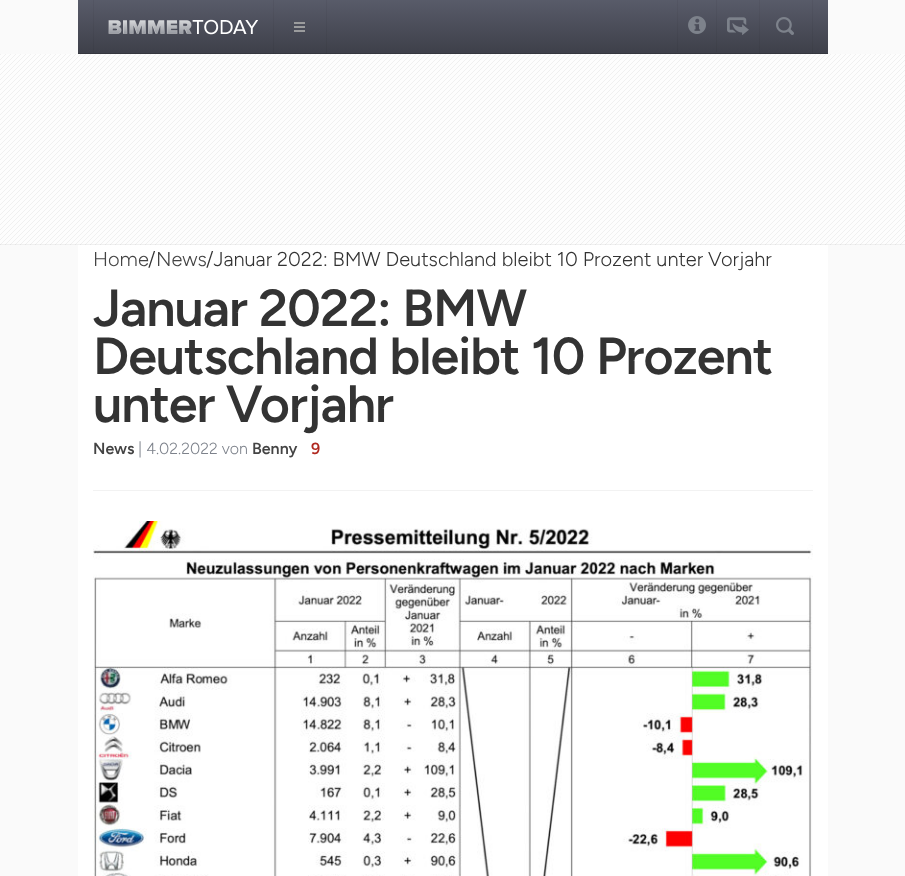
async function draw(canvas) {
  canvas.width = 905;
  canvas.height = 876;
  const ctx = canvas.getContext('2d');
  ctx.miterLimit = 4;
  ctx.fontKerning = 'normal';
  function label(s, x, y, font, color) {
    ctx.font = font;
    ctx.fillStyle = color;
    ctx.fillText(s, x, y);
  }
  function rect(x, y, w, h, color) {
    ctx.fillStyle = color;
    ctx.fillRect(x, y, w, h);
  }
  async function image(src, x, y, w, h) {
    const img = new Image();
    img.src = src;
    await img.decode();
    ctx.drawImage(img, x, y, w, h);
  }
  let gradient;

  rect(0, 0, 905, 876, '#fafafa');
  gradient = ctx.createLinearGradient(453, 0, 453, 53);
  gradient.addColorStop(0.01, '#585b69');
  gradient.addColorStop(0.96, '#3f414b');
  ctx.fillStyle = gradient;
  ctx.fillRect(78, 0, 750, 53);
  gradient = ctx.createLinearGradient(453, 0, 453, 53);
  gradient.addColorStop(0.01, '#545664');
  gradient.addColorStop(0.96, '#3c3e47');
  ctx.fillStyle = gradient;
  ctx.fillRect(759, 0, 1, 53);
  ctx.fillRect(812, 0, 1, 53);
  ctx.fillRect(716, 0, 1, 52);
  ctx.fillRect(677, 0, 1, 52);
  ctx.fillRect(273, 0, 1, 53);
  ctx.fillRect(326, 0, 1, 53);
  ctx.fillRect(93, 0, 1, 53);
  rect(78, 53, 750, 1, '#35373f');
  rect(759, 53, 1, 1, '#32343c');
  rect(812, 53, 1, 1, '#32343c');
  rect(273, 53, 1, 1, '#32343c');
  rect(326, 53, 1, 1, '#32343c');
  await image('assets/img1.png', 108, 19, 150, 16);
  await image('assets/img2.png', 294, 22, 11, 10);
  await image('assets/img3.png', 688, 16, 18, 18);
  await image('assets/img4.png', 727, 17, 22, 18);
  await image('assets/img5.png', 776, 17, 18, 18);
  await image('assets/img6.png', 0, 54, 905, 191);
  rect(0, 244, 905, 1, '#0000000d');
  rect(78, 245, 750, 631, '#fff');
  rect(93, 490, 720, 1, '#f2f2f2');
  label('Home', 93, 266, '300 20px Figtree', '#444');
  label('/', 148, 266, '300 20px Figtree', '#333');
  label('News', 156, 266, '300 20px Figtree', '#444');
  label('/Januar 2022: BMW Deutschland bleibt 10 Prozent unter Vorjahr', 206, 266, '300 20px Figtree', '#333');
  ctx.letterSpacing = '-1px';
  label('Januar 2022: BMW', 93, 326, '600 52px Figtree', '#333');
  label('Deutschland bleibt 10 Prozent', 93, 374, '600 52px Figtree', '#333');
  label('unter Vorjahr', 93, 422, '600 52px Figtree', '#333');
  ctx.letterSpacing = '0px';
  label('News', 93, 454, '600 16px Figtree', '#444');
  label('| 4.02.2022 von', 138, 454, '300 16px Figtree', '#7d828b');
  label('Benny', 252, 454, '600 16px Figtree', '#444');
  label('9', 311, 454, '600 16px Figtree', '#b0281f');
  await image('assets/img7.png', 93, 521, 720, 355);
}

draw(document.querySelector('canvas'));
